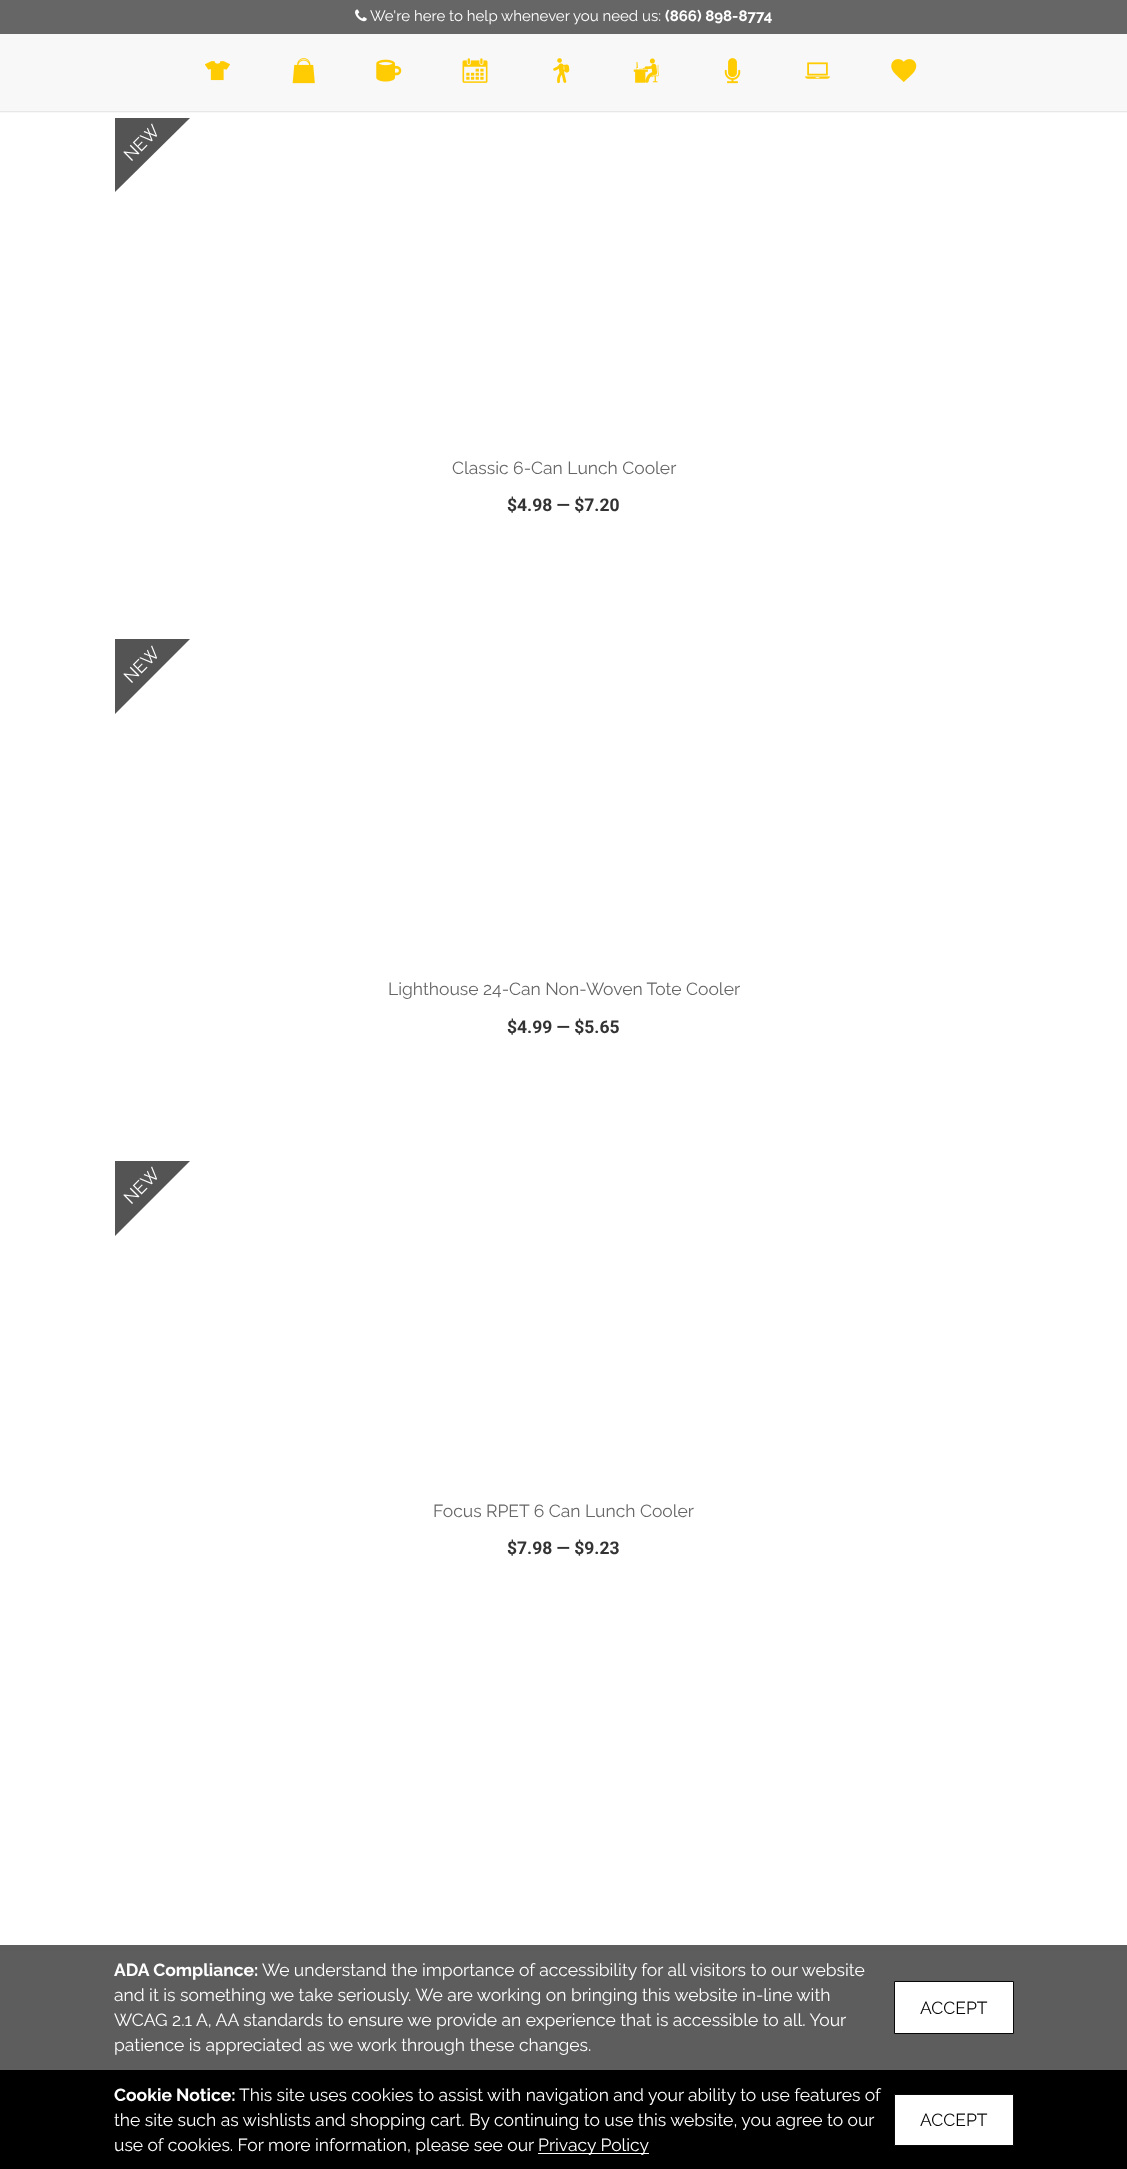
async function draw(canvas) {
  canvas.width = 1127;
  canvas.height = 2169;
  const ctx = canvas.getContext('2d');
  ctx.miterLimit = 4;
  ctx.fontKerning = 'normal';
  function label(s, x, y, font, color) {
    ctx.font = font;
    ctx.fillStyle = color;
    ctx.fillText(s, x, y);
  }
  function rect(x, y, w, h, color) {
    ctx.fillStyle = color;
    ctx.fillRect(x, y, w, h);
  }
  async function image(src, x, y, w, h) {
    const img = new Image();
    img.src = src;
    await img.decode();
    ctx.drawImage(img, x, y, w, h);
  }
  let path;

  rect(0, 0, 1127, 2169, '#fff');
  rect(0, 0, 1127, 34, '#666');
  await image('assets/img1.png', 355, 9, 12, 13);
  label('We\'re here to help whenever you need us:', 370, 21, '15px Raleway', '#fff');
  label('(866) 898-8774', 665, 21, 'bold 15px Raleway', '#fff');
  rect(0, 34, 1127, 79, '#f8f8f8');
  rect(0, 111, 1127, 1, '#e7e7e7');
  await image('assets/img2.png', 205, 61, 25, 20);
  await image('assets/img3.png', 292, 58, 23, 26);
  await image('assets/img4.png', 376, 59, 26, 23);
  await image('assets/img5.png', 462, 58, 26, 25);
  await image('assets/img6.png', 553, 58, 17, 26);
  await image('assets/img7.png', 633, 58, 26, 25);
  await image('assets/img8.png', 724, 58, 17, 26);
  await image('assets/img9.png', 805, 62, 25, 17);
  await image('assets/img10.png', 891, 59, 26, 23);
  ctx.fillStyle = '#545454';
  path = new Path2D('M115 118H190L115 192Z');
  ctx.fill(path);
  ctx.font = '17.5px Raleway';
  ctx.fillStyle = '#fff';
  ctx.save();
  ctx.translate(131, 162);
  ctx.rotate(-45 * Math.PI / 180);
  ctx.fillText('NEW', 0, 0);
  ctx.restore();
  label('Classic 6-Can Lunch Cooler', 452, 474, '17.5px Raleway', '#666');
  label('$4.98 — $7.20', 507, 511, 'bold 17.5px Roboto', '#333');
  ctx.fillStyle = '#545454';
  path = new Path2D('M115 639H190L115 714Z');
  ctx.fill(path);
  ctx.font = '17.5px Raleway';
  ctx.fillStyle = '#fff';
  ctx.save();
  ctx.translate(131, 684);
  ctx.rotate(-45 * Math.PI / 180);
  ctx.fillText('NEW', 0, 0);
  ctx.restore();
  label('Lighthouse 24-Can Non-Woven Tote Cooler', 388, 995, '17.5px Raleway', '#666');
  label('$4.99 — $5.65', 507, 1033, 'bold 17.5px Roboto', '#333');
  ctx.fillStyle = '#545454';
  path = new Path2D('M115 1161H190L115 1236Z');
  ctx.fill(path);
  ctx.font = '17.5px Raleway';
  ctx.fillStyle = '#fff';
  ctx.save();
  ctx.translate(131, 1205);
  ctx.rotate(-45 * Math.PI / 180);
  ctx.fillText('NEW', 0, 0);
  ctx.restore();
  label('Focus RPET 6 Can Lunch Cooler', 433, 1517, '17.5px Raleway', '#666');
  label('$7.98 — $9.23', 507, 1554, 'bold 17.5px Roboto', '#333');
  rect(0, 1945, 1127, 125, '#5d5d5d');
  label('ADA Compliance:', 114, 1976, 'bold 17.5px Raleway', '#fff');
  label('We understand the importance of accessibility for all visitors to our website', 262, 1976, '17.5px Raleway', '#fff');
  label('and it is something we take seriously. We are working on bringing this website in-line with', 114, 2001, '17.5px Raleway', '#fff');
  label('WCAG 2.1 A, AA standards to ensure we provide an experience that is accessible to all. Your', 114, 2026, '17.5px Raleway', '#fff');
  label('patience is appreciated as we work through these changes.', 114, 2051, '17.5px Raleway', '#fff');
  ctx.beginPath();
  ctx.rect(894.5, 1981.5, 119, 52);
  ctx.fill();
  ctx.strokeStyle = '#080808';
  ctx.stroke();
  label('ACCEPT', 920, 2014, '17.5px Raleway', '#080808');
  rect(0, 2070, 1127, 99, '#000');
  label('Cookie Notice:', 114, 2101, 'bold 17.5px Raleway', '#fff');
  label('This site uses cookies to assist with navigation and your ability to use features of', 239, 2101, '17.5px Raleway', '#fff');
  label('the site such as wishlists and shopping cart. By continuing to use this website, you agree to our', 114, 2126, '17.5px Raleway', '#fff');
  label('use of cookies. For more information, please see our', 114, 2151, '17.5px Raleway', '#fff');
  rect(538, 2153, 111, 1, '#fff');
  label('Privacy Policy', 538, 2151, '17.5px Raleway', '#fff');
  ctx.beginPath();
  ctx.rect(894.5, 2094.5, 119, 51);
  ctx.fill();
  ctx.stroke();
  label('ACCEPT', 920, 2126, '17.5px Raleway', '#080808');
}

draw(document.querySelector('canvas'));
